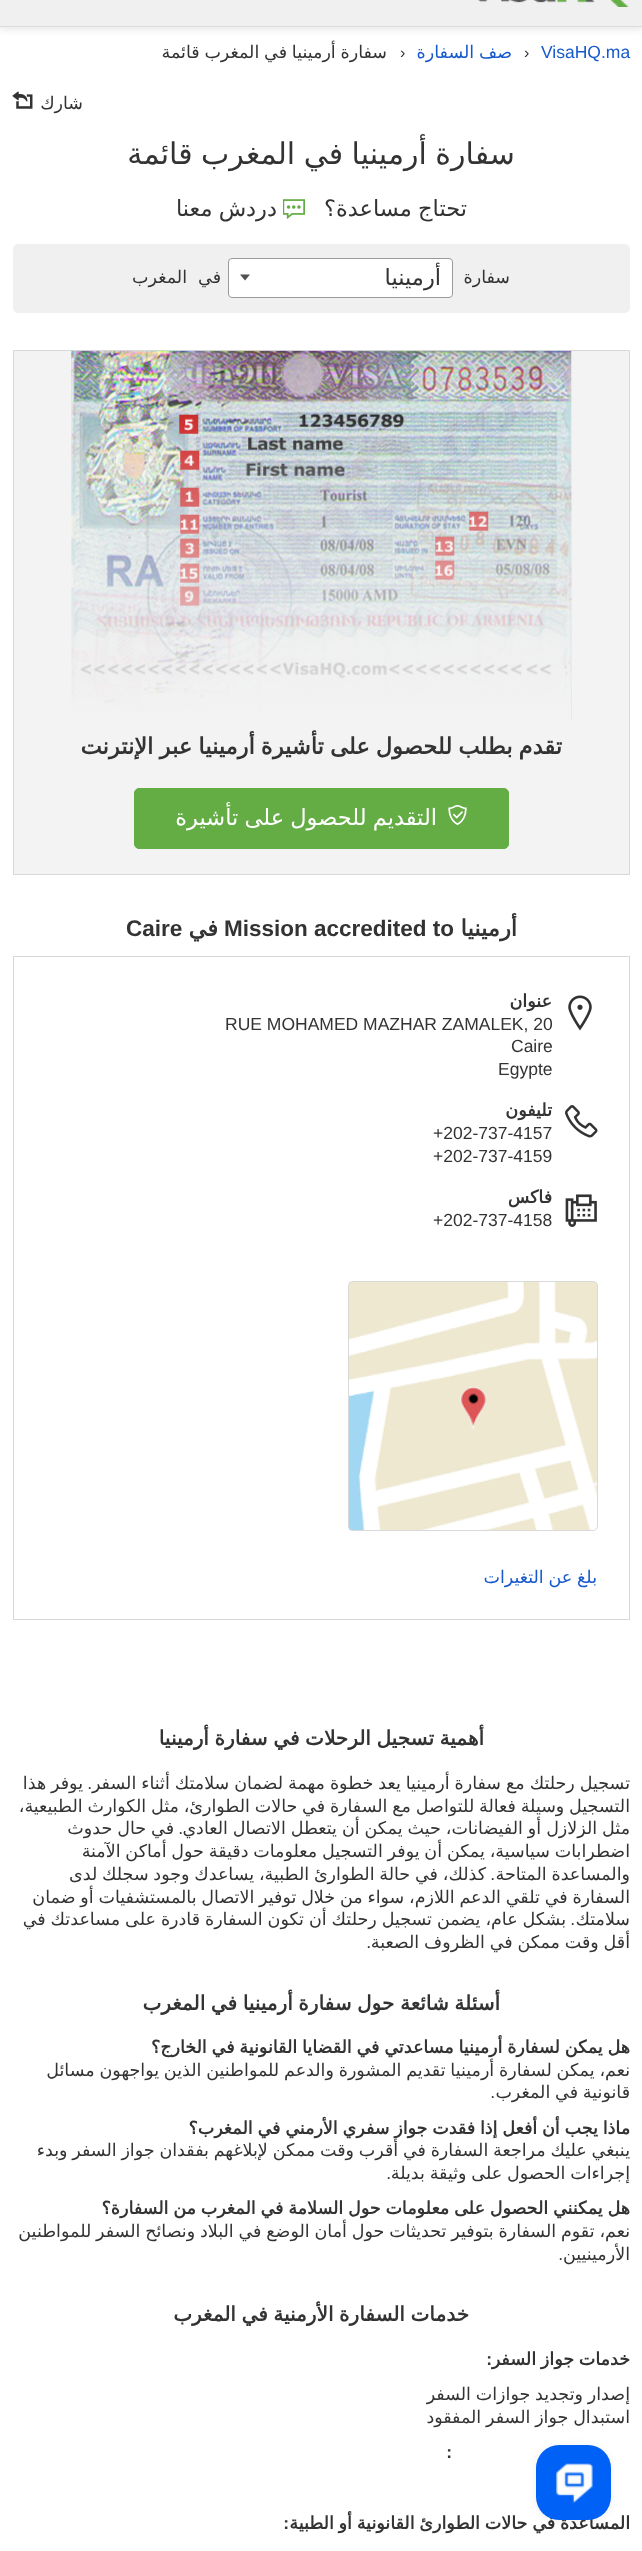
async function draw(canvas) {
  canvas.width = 642;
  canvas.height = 2551;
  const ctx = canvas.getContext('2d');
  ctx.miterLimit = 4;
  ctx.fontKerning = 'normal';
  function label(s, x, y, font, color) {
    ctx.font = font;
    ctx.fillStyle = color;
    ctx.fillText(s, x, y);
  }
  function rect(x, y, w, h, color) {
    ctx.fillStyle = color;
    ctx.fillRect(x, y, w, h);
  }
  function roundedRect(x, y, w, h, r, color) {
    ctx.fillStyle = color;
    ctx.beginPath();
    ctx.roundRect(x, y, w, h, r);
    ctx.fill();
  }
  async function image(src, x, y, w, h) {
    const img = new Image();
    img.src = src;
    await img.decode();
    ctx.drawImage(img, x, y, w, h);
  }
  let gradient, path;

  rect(0, 0, 642, 2551, '#fff');
  ctx.fillStyle = '#dcdcdc';
  ctx.filter = 'blur(4px)';
  ctx.beginPath();
  ctx.rect(0, -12, 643, 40);
  ctx.fill();
  ctx.filter = 'none';
  rect(0, 0, 642, 28, '#f0f0f0');
  rect(0, 26, 642, 1, '#dcdcdc');
  await image('assets/img1.png', 478, 0, 151, 7);
  label('VisaHQ.ma', 541, 58, '17.5px Liberation Sans', '#1659cd');
  label('›', 524, 58, '16px Liberation Sans', '#333');
  ctx.wordSpacing = '-0.75px';
  ctx.direction = 'rtl';
  label('صف السفارة', 512, 58, '17.5px DejaVu Sans', '#1659cd');
  ctx.wordSpacing = '0px';
  ctx.direction = 'ltr';
  label('›', 400, 58, '16px Liberation Sans', '#333');
  ctx.wordSpacing = '-0.75px';
  ctx.direction = 'rtl';
  label('سفارة أرمينيا في المغرب قائمة', 387, 58, '17.5px DejaVu Sans', '#333');
  ctx.wordSpacing = '0px';
  label('شارك', 83, 109, '17.5px DejaVu Sans', '#333');
  await image('assets/img2.png', 12, 91, 21, 18);
  ctx.wordSpacing = '-1px';
  label('سفارة أرمينيا في المغرب قائمة', 515, 164, '30px DejaVu Sans', '#333');
  label('تحتاج مساعدة؟', 467, 216, '22.5px DejaVu Sans', '#333');
  await image('assets/img3.png', 283, 199, 22, 21);
  label('دردش معنا', 277, 216, '22.5px DejaVu Sans', '#333');
  roundedRect(13, 244, 617, 69, 5, '#f0f0f0');
  ctx.wordSpacing = '0px';
  label('سفارة', 510, 283, '17.5px DejaVu Sans', '#333');
  ctx.fillStyle = '#fff';
  ctx.beginPath();
  ctx.roundRect(228.5, 258.5, 224, 39, 3.5);
  ctx.fill();
  ctx.strokeStyle = '#9a9a9a';
  ctx.stroke();
  label('أرمينيا', 441, 285, '22.5px DejaVu Sans', '#333');
  ctx.fillStyle = '#505050';
  path = new Path2D('M240 274.5H250L245 280.5Z');
  ctx.fill(path);
  label('في', 221, 283, '17.5px DejaVu Sans', '#333');
  label('المغرب', 187, 283, '17.5px DejaVu Sans', '#333');
  ctx.fillStyle = '#f3f3f3';
  ctx.beginPath();
  ctx.rect(13.5, 350.5, 616, 524);
  ctx.fill();
  ctx.strokeStyle = '#d7d7d7';
  ctx.stroke();
  await image('assets/img4.png', 71, 350, 501, 370);
  gradient = ctx.createLinearGradient(321, 351, 321, 720);
  gradient.addColorStop(0, '#f3f3f300');
  gradient.addColorStop(1, '#f3f3f3');
  ctx.fillStyle = gradient;
  ctx.fillRect(71, 359, 500, 361);
  ctx.wordSpacing = '-1px';
  label('تقدم بطلب للحصول على تأشيرة أرمينيا عبر الإنترنت', 562, 754, 'bold 22.5px DejaVu Sans', '#333');
  ctx.fillStyle = '#64ac44';
  ctx.beginPath();
  ctx.roundRect(134.5, 788.5, 374, 60, 4.5);
  ctx.fill();
  ctx.strokeStyle = '#64ac44';
  ctx.stroke();
  await image('assets/img5.png', 448, 805, 19, 20);
  label('التقديم للحصول على تأشيرة', 437, 825, '22.5px DejaVu Sans', '#fff');
  ctx.wordSpacing = '0px';
  label('أرمينيا', 517, 936, 'bold 22.5px DejaVu Sans', '#333');
  ctx.direction = 'ltr';
  label('Mission accredited to', 224, 936, 'bold 22.5px Liberation Sans', '#333');
  ctx.direction = 'rtl';
  label('في', 218, 936, 'bold 22.5px DejaVu Sans', '#333');
  ctx.direction = 'ltr';
  label('Caire', 126, 936, 'bold 22.5px Liberation Sans', '#333');
  ctx.strokeStyle = '#d7d7d7';
  ctx.strokeRect(13.5, 956.5, 616, 663);
  await image('assets/img6.png', 568, 995, 24, 36);
  ctx.direction = 'rtl';
  label('عنوان', 552, 1007, 'bold 17.5px DejaVu Sans', '#333');
  ctx.direction = 'ltr';
  label('RUE MOHAMED MAZHAR ZAMALEK, 20', 225, 1030, '17.5px Liberation Sans', '#333');
  label('Caire', 511, 1052, '17.5px Liberation Sans', '#333');
  label('Egypte', 498, 1075, '17.5px Liberation Sans', '#333');
  await image('assets/img7.png', 565, 1105, 33, 33);
  ctx.direction = 'rtl';
  label('تليفون', 552, 1116, 'bold 17.5px DejaVu Sans', '#333');
  ctx.direction = 'ltr';
  label('+202-737-4157', 433, 1139, '17.5px Liberation Sans', '#333');
  label('+202-737-4159', 433, 1162, '17.5px Liberation Sans', '#333');
  await image('assets/img8.png', 565, 1194, 32, 33);
  ctx.direction = 'rtl';
  label('فاكس', 552, 1203, 'bold 17.5px DejaVu Sans', '#333');
  ctx.direction = 'ltr';
  label('+202-737-4158', 433, 1226, '17.5px Liberation Sans', '#333');
  await image('assets/img9.png', 348, 1282, 250, 249);
  ctx.beginPath();
  ctx.roundRect(348.5, 1281.5, 249, 249, 4.5);
  ctx.strokeStyle = '#d9d9d9';
  ctx.stroke();
  ctx.wordSpacing = '-0.75px';
  ctx.direction = 'rtl';
  label('بلغ عن التغيرات', 597, 1583, '17.5px DejaVu Sans', '#1659cd');
  label('أهمية تسجيل الرحلات في سفارة أرمينيا', 484, 1745, 'bold 20px DejaVu Sans', '#333');
  ctx.wordSpacing = '-0.6px';
  label('تسجيل رحلتك مع سفارة أرمينيا يعد خطوة مهمة لضمان سلامتك أثناء السفر', 630, 1789, '17.5px DejaVu Sans', '#333');
  ctx.wordSpacing = '0px';
  label('.', 92, 1789, '17.5px Liberation Sans', '#333');
  ctx.wordSpacing = '-0.6px';
  label('يوفر هذا', 83, 1789, '17.5px DejaVu Sans', '#333');
  ctx.wordSpacing = '-0.75px';
  label('التسجيل وسيلة فعالة للتواصل مع السفارة في حالات الطوارئ، مثل الكوارث الطبيعية،', 630, 1812, '17.5px DejaVu Sans', '#333');
  ctx.wordSpacing = '-0.6px';
  label('مثل الزلازل أو الفيضانات، حيث يمكن أن يتعطل الاتصال العادي', 630, 1834, '17.5px DejaVu Sans', '#333');
  ctx.wordSpacing = '0px';
  label('.', 183, 1834, '17.5px Liberation Sans', '#333');
  ctx.wordSpacing = '-0.6px';
  label('في حال حدوث', 174, 1834, '17.5px DejaVu Sans', '#333');
  ctx.wordSpacing = '-0.75px';
  label('اضطرابات سياسية، يمكن أن يوفر التسجيل معلومات دقيقة حول أماكن الآمنة', 630, 1857, '17.5px DejaVu Sans', '#333');
  label('والمساعدة المتاحة', 630, 1880, '17.5px DejaVu Sans', '#333');
  ctx.wordSpacing = '0px';
  label('.', 495, 1880, '17.5px Liberation Sans', '#333');
  ctx.wordSpacing = '-0.75px';
  label('كذلك، في حالة الطوارئ الطبية، يساعدك وجود سجلك لدى', 486, 1880, '17.5px DejaVu Sans', '#333');
  label('السفارة في تلقي الدعم اللازم، سواء من خلال توفير الاتصال بالمستشفيات أو ضمان', 630, 1903, '17.5px DejaVu Sans', '#333');
  ctx.wordSpacing = '0px';
  label('سلامتك', 630, 1925, '17.5px DejaVu Sans', '#333');
  label('.', 575, 1925, '17.5px Liberation Sans', '#333');
  ctx.wordSpacing = '-0.6px';
  label('بشكل عام، يضمن تسجيل رحلتك أن تكون السفارة قادرة على مساعدتك في', 566, 1925, '17.5px DejaVu Sans', '#333');
  ctx.wordSpacing = '-0.75px';
  label('أقل وقت ممكن في الظروف الصعبة', 630, 1948, '17.5px DejaVu Sans', '#333');
  ctx.wordSpacing = '0px';
  label('.', 371, 1948, '17.5px Liberation Sans', '#333');
  ctx.wordSpacing = '-0.75px';
  label('أسئلة شائعة حول سفارة أرمينيا في المغرب', 500, 2010, 'bold 20px DejaVu Sans', '#333');
  label('هل يمكن لسفارة أرمينيا مساعدتي في القضايا القانونية في الخارج؟', 630, 2053, 'bold 17.5px DejaVu Sans', '#333');
  label('نعم، يمكن لسفارة أرمينيا تقديم المشورة والدعم للمواطنين الذين يواجهون مسائل', 630, 2076, '17.5px DejaVu Sans', '#333');
  label('قانونية في المغرب', 630, 2098, '17.5px DejaVu Sans', '#333');
  ctx.wordSpacing = '0px';
  label('.', 495, 2098, '17.5px Liberation Sans', '#333');
  ctx.wordSpacing = '-0.75px';
  label('ماذا يجب أن أفعل إذا فقدت جواز سفري الأرمني في المغرب؟', 630, 2134, 'bold 17.5px DejaVu Sans', '#333');
  label('ينبغي عليك مراجعة السفارة في أقرب وقت ممكن لإبلاغهم بفقدان جواز السفر وبدء', 630, 2156, '17.5px DejaVu Sans', '#333');
  label('إجراءات الحصول على وثيقة بديلة', 630, 2179, '17.5px DejaVu Sans', '#333');
  ctx.wordSpacing = '0px';
  label('.', 391, 2179, '17.5px Liberation Sans', '#333');
  ctx.wordSpacing = '-0.75px';
  label('هل يمكنني الحصول على معلومات حول السلامة في المغرب من السفارة؟', 630, 2214, 'bold 17.5px DejaVu Sans', '#333');
  label('نعم، تقوم السفارة بتوفير تحديثات حول أمان الوضع في البلاد ونصائح السفر للمواطنين', 630, 2237, '17.5px DejaVu Sans', '#333');
  ctx.wordSpacing = '0px';
  label('الأرمينيين', 630, 2260, '17.5px DejaVu Sans', '#333');
  label('.', 563, 2260, '17.5px Liberation Sans', '#333');
  ctx.wordSpacing = '-0.75px';
  label('خدمات السفارة الأرمنية في المغرب', 469, 2321, 'bold 20px DejaVu Sans', '#333');
  label('خدمات جواز السفر', 630, 2365, 'bold 17.5px DejaVu Sans', '#333');
  ctx.wordSpacing = '0px';
  label(':', 492, 2365, 'bold 17.5px Liberation Sans', '#333');
  ctx.wordSpacing = '-0.75px';
  label('إصدار وتجديد جوازات السفر', 630, 2400, '17.5px DejaVu Sans', '#333');
  label('استبدال جواز السفر المفقود', 630, 2423, '17.5px DejaVu Sans', '#333');
  ctx.wordSpacing = '0px';
  label(':', 452, 2458, 'bold 17.5px Liberation Sans', '#333');
  ctx.wordSpacing = '-0.75px';
  label('المساعدة في حالات الطوارئ القانونية أو الطبية', 630, 2529, 'bold 17.5px DejaVu Sans', '#333');
  ctx.wordSpacing = '0px';
  label(':', 289, 2529, 'bold 17.5px Liberation Sans', '#333');
  ctx.fillStyle = '#0000000f';
  ctx.filter = 'blur(4px)';
  ctx.beginPath();
  ctx.roundRect(536, 2446, 75, 75, 23);
  ctx.fill();
  ctx.filter = 'none';
  roundedRect(536, 2445, 75, 75, 23, '#0061f6');
  await image('assets/img10.png', 556, 2463, 37, 40);
}

draw(document.querySelector('canvas'));
